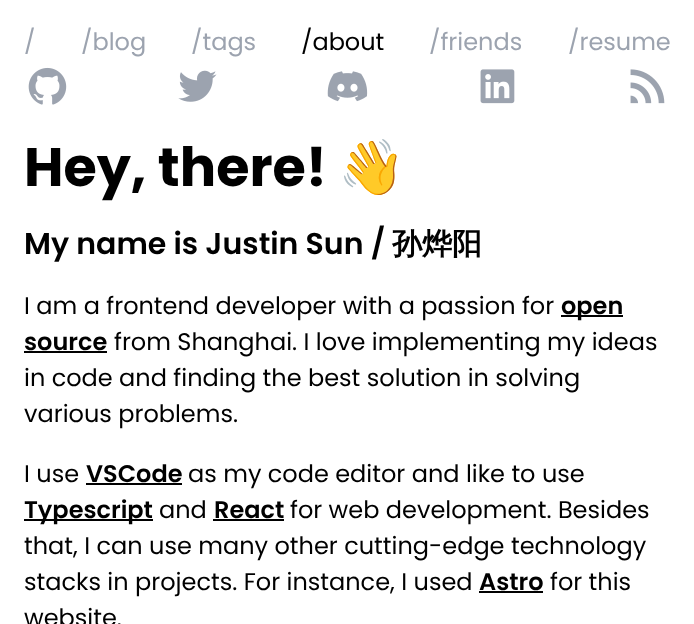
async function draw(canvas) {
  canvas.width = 694;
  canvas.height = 624;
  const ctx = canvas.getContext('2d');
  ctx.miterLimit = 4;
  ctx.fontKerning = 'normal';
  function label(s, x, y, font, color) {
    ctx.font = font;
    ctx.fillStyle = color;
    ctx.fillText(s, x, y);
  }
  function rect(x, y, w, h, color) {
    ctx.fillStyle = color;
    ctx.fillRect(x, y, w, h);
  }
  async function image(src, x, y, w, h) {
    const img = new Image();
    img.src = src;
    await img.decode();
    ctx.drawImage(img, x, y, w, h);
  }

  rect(0, 0, 694, 624, '#fff');
  label('👋', 338, 186, 'bold 54px Noto Color Emoji', '#000');
  rect(338, 137, 66, 1, '#fff');
  label('/', 24, 50, '24px Poppins', '#9ca3af');
  label('/blog', 81, 50, '24px Poppins', '#9ca3af');
  label('/tags', 191, 50, '24px Poppins', '#9ca3af');
  label('/about', 301, 50, '24px Poppins', '#000');
  label('/friends', 429, 50, '24px Poppins', '#9ca3af');
  label('/resume', 568, 50, '24px Poppins', '#9ca3af');
  await image('assets/img1.png', 28, 67, 39, 38);
  await image('assets/img2.png', 178, 70, 39, 32);
  await image('assets/img3.png', 327, 71, 41, 31);
  await image('assets/img4.png', 480, 69, 35, 35);
  await image('assets/img5.png', 630, 69, 35, 35);
  label('Hey, there!', 24, 186, 'bold 54px Poppins', '#000');
  label('My name is Justin Sun /', 24, 254, '600 30px Poppins', '#000');
  label('孙烨阳', 392, 254, 'bold 30px WenQuanYi Zen Hei', '#000');
  label('I am a frontend developer with a passion for', 24, 314, '24px Poppins', '#000');
  rect(561, 315, 62, 2, '#000');
  label('open', 561, 314, '600 24px Poppins', '#000');
  label('source', 24, 350, '600 24px Poppins', '#000');
  rect(24, 351, 83, 2, '#000');
  label('from Shanghai. I love implementing my ideas', 114, 350, '24px Poppins', '#000');
  label('in code and finding the best solution in solving', 24, 386, '24px Poppins', '#000');
  label('various problems.', 24, 422, '24px Poppins', '#000');
  label('I use', 24, 482, '24px Poppins', '#000');
  label('VSCode', 86, 482, '600 24px Poppins', '#000');
  rect(86, 483, 96, 2, '#000');
  label('as my code editor and like to use', 188, 482, '24px Poppins', '#000');
  rect(24, 519, 129, 2, '#000');
  label('Typescript', 24, 518, '600 24px Poppins', '#000');
  label('and', 159, 518, '24px Poppins', '#000');
  label('React', 214, 518, '600 24px Poppins', '#000');
  rect(213, 519, 71, 2, '#000');
  label('for web development. Besides', 290, 518, '24px Poppins', '#000');
  label('that, I can use many other cutting-edge technology', 24, 554, '24px Poppins', '#000');
  label('stacks in projects. For instance, I used', 24, 590, '24px Poppins', '#000');
  label('Astro', 479, 590, '600 24px Poppins', '#000');
  rect(479, 591, 64, 2, '#000');
  label('for this', 550, 590, '24px Poppins', '#000');
  label('website.', 24, 626, '24px Poppins', '#000');
}

draw(document.querySelector('canvas'));
